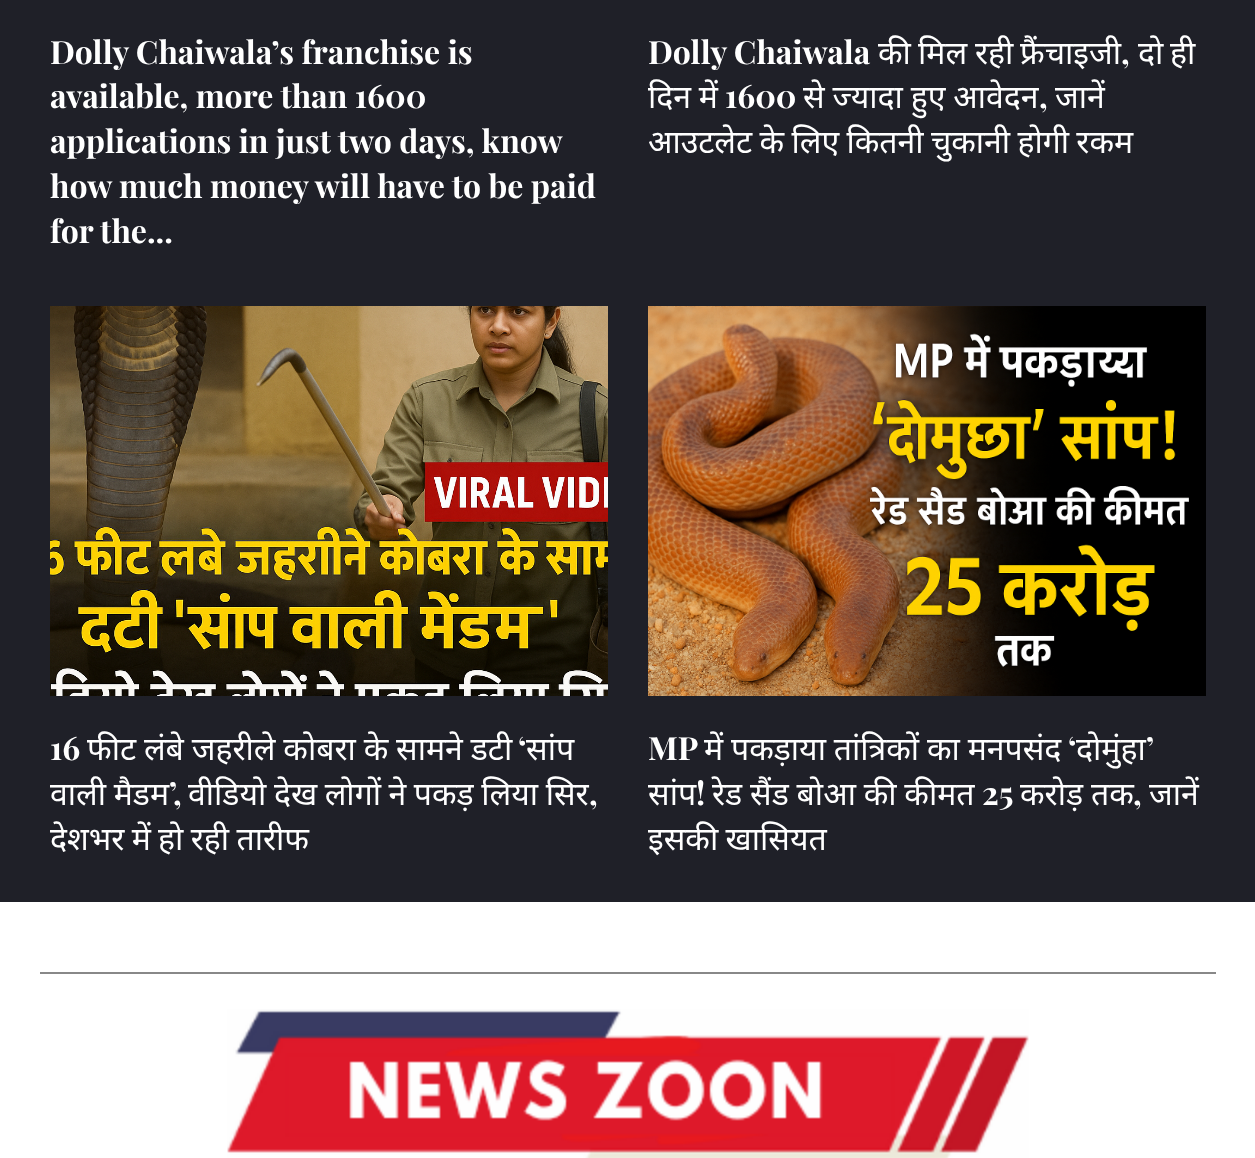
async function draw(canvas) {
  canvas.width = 1255;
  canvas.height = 1158;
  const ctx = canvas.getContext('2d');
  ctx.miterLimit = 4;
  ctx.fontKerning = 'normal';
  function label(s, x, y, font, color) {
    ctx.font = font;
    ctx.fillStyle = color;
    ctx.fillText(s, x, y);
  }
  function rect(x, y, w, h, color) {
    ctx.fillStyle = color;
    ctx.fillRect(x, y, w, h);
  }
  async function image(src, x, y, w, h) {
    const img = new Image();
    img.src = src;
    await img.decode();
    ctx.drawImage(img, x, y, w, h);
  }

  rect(0, 0, 1255, 1158, '#fff');
  rect(0, 0, 1255, 902, '#1f2028');
  label('Dolly Chaiwala’s franchise is', 50, 64, 'bold 32px Playfair Display', '#fff');
  label('available, more than 1600', 50, 108, 'bold 32px Playfair Display', '#fff');
  label('applications in just two days, know', 50, 153, 'bold 32px Playfair Display', '#fff');
  label('how much money will have to be paid', 50, 198, 'bold 32px Playfair Display', '#fff');
  label('for the...', 50, 243, 'bold 32px Playfair Display', '#fff');
  label('Dolly Chaiwala', 648, 64, 'bold 32px Playfair Display', '#fff');
  label('की', 878, 64, '32px Noto Sans', '#fff');
  label('मिल', 918, 64, '32px Noto Sans', '#fff');
  label('रही', 975, 64, '32px Noto Sans', '#fff');
  label('फ्रैंचाइजी', 1020, 64, '32px Noto Sans', '#fff');
  label(',', 1121, 64, 'bold 32px Playfair Display', '#fff');
  label('दो', 1138, 64, '32px Noto Sans', '#fff');
  label('ही', 1170, 64, '32px Noto Sans', '#fff');
  ctx.wordSpacing = '-0.5px';
  label('दिन में', 648, 108, '32px Noto Sans', '#fff');
  ctx.wordSpacing = '0px';
  label('1600', 725, 108, 'bold 32px Playfair Display', '#fff');
  ctx.wordSpacing = '-0.5px';
  label('से ज्यादा हुए आवेदन', 803, 108, '32px Noto Sans', '#fff');
  ctx.wordSpacing = '0px';
  label(',', 1039, 108, 'bold 32px Playfair Display', '#fff');
  label('जानें', 1055, 108, '32px Noto Sans', '#fff');
  ctx.wordSpacing = '-1px';
  label('आउटलेट के लिए कितनी चुकानी होगी रकम', 648, 153, '32px Noto Sans', '#fff');
  await image('assets/img1.png', 50, 306, 558, 390);
  ctx.wordSpacing = '0px';
  label('16', 50, 760, 'bold 32px Playfair Display', '#fff');
  ctx.wordSpacing = '-0.5px';
  label('फीट लंबे जहरीले कोबरा के सामने डटी', 87, 760, '32px Noto Sans', '#fff');
  ctx.wordSpacing = '0px';
  label('‘', 518, 760, 'bold 32px Playfair Display', '#fff');
  label('सांप', 526, 760, '32px Noto Sans', '#fff');
  ctx.wordSpacing = '-0.75px';
  label('वाली मैडम', 50, 805, '32px Noto Sans', '#fff');
  ctx.wordSpacing = '0px';
  label('’,', 169, 805, 'bold 32px Playfair Display', '#fff');
  ctx.wordSpacing = '-0.75px';
  label('वीडियो देख लोगों ने पकड़ लिया सिर', 188, 805, '32px Noto Sans', '#fff');
  ctx.wordSpacing = '0px';
  label(',', 589, 805, 'bold 32px Playfair Display', '#fff');
  ctx.wordSpacing = '-1px';
  label('देशभर में हो रही तारीफ', 50, 850, '32px Noto Sans', '#fff');
  await image('assets/img2.png', 648, 306, 558, 390);
  ctx.wordSpacing = '0px';
  label('MP', 648, 760, 'bold 32px Playfair Display', '#fff');
  ctx.wordSpacing = '-0.5px';
  label('में पकड़ाया तांत्रिकों का मनपसंद', 704, 760, '32px Noto Sans', '#fff');
  ctx.wordSpacing = '0px';
  label('‘', 1068, 760, 'bold 32px Playfair Display', '#fff');
  label('दोमुंहा', 1076, 760, '32px Noto Sans', '#fff');
  label('’', 1146, 760, 'bold 32px Playfair Display', '#fff');
  label('सांप', 648, 805, '32px Noto Sans', '#fff');
  label('!', 696, 805, 'bold 32px Playfair Display', '#fff');
  ctx.wordSpacing = '-0.5px';
  label('रेड सैंड बोआ की कीमत', 712, 805, '32px Noto Sans', '#fff');
  label('करोड़ तक', 1020, 805, '32px Noto Sans', '#fff');
  ctx.wordSpacing = '0px';
  label('जानें', 1149, 805, '32px Noto Sans', '#fff');
  label('25', 982, 805, 'bold 32px Playfair Display', '#fff');
  label(',', 1133, 805, 'bold 32px Playfair Display', '#fff');
  ctx.wordSpacing = '-1px';
  label('इसकी खासियत', 648, 850, '32px Noto Sans', '#fff');
  rect(40, 972, 1176, 2, '#888');
  await image('assets/img3.png', 227, 1009, 802, 149);
}

draw(document.querySelector('canvas'));
